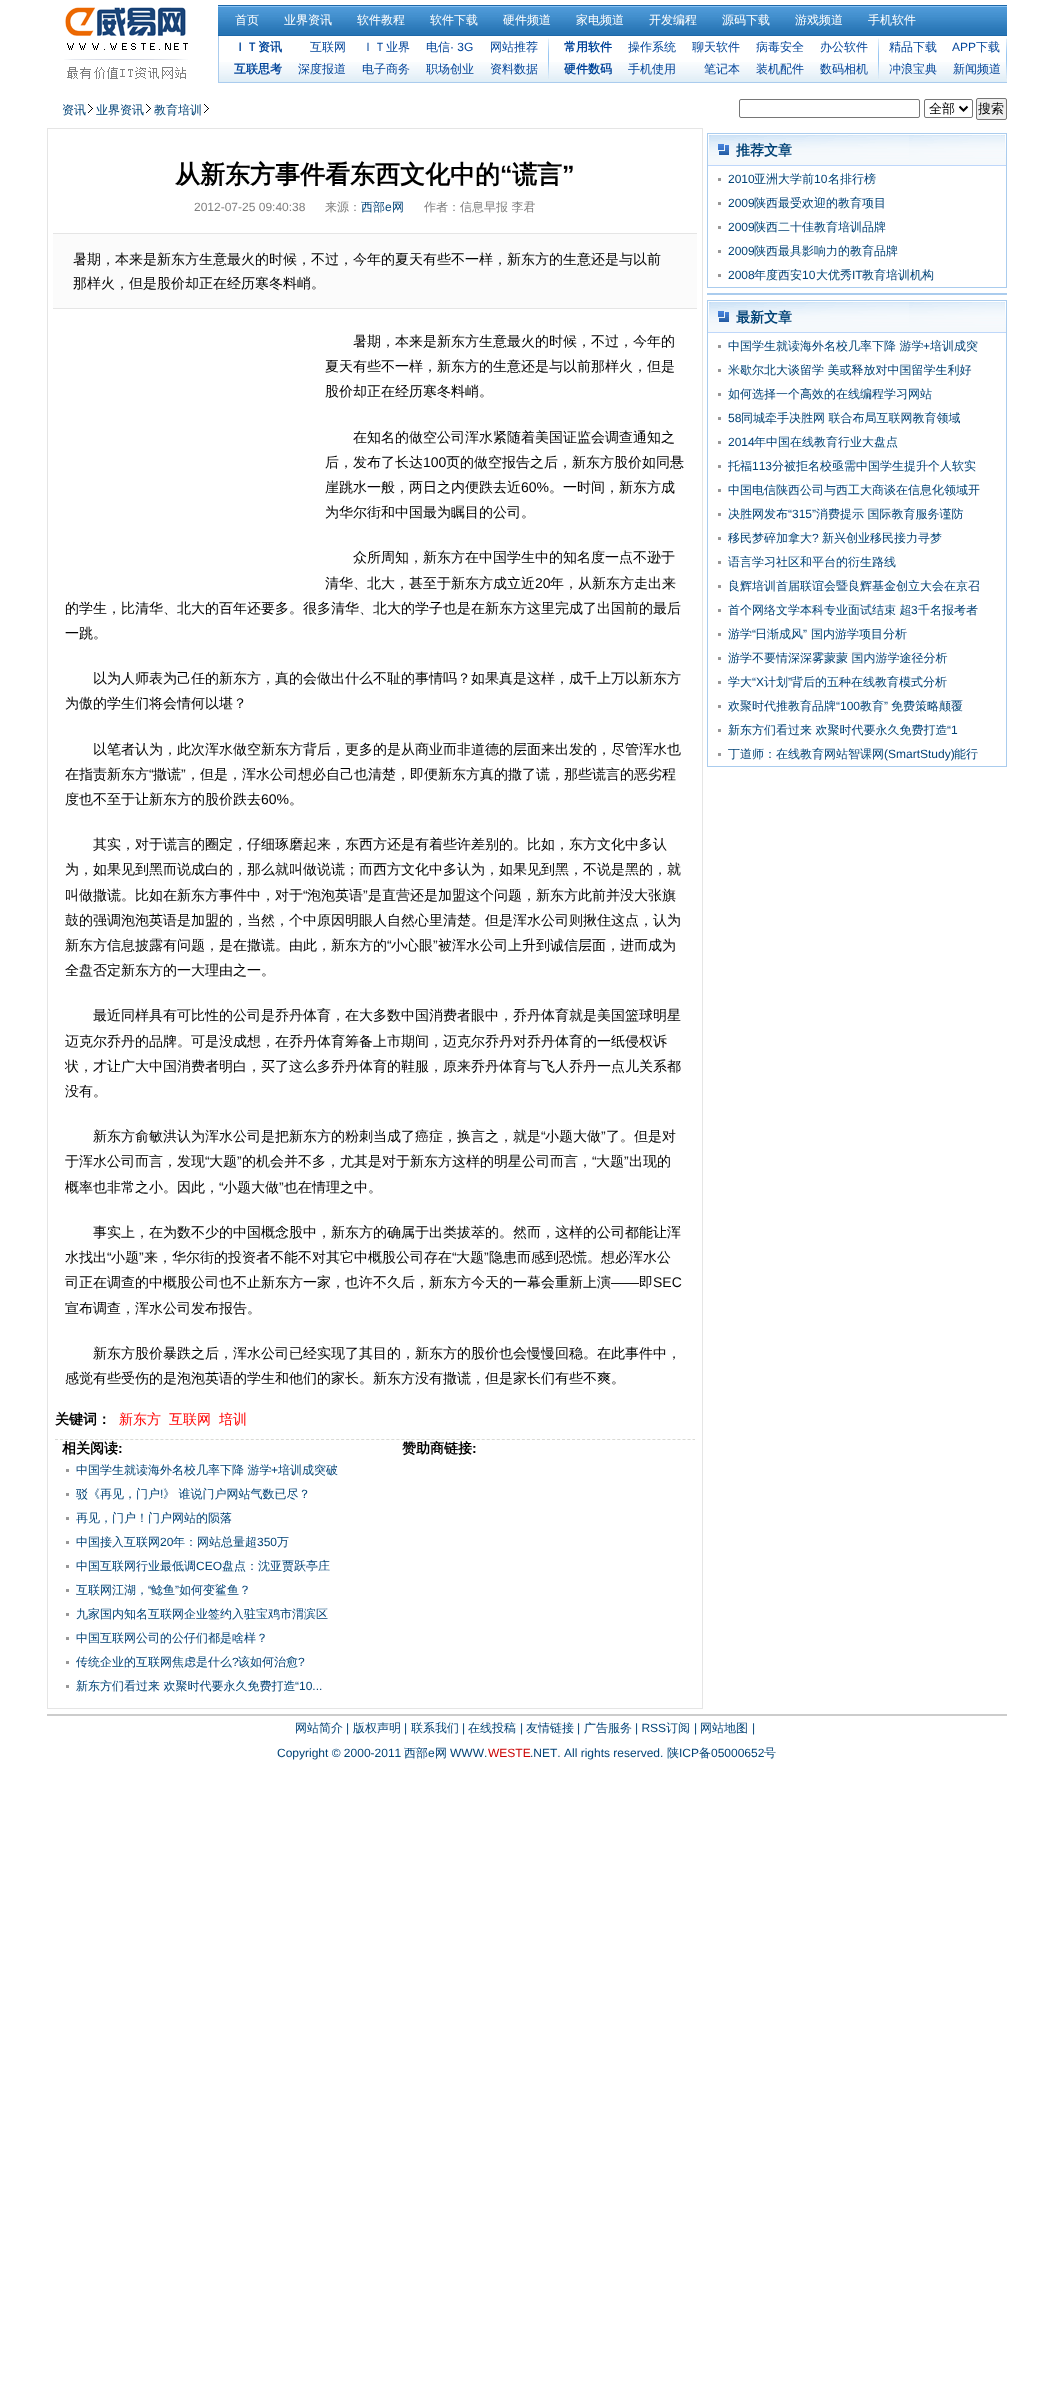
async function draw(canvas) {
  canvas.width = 1053;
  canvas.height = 2405;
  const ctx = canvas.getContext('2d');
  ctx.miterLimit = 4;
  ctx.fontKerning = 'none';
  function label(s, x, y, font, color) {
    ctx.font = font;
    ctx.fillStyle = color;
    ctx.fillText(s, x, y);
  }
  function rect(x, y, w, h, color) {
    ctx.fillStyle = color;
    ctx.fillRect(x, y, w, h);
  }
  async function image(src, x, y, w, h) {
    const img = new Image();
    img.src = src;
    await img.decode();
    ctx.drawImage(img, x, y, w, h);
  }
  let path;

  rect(0, 0, 1053, 2405, '#fff');
  await image('assets/img1.png', 64, 7, 124, 72);
  await image('assets/img2.png', 218, 5, 789, 31);
  label('首页', 235, 24, '500 12px WenQuanYi Zen Hei', '#fff');
  label('业界资讯', 284, 24, '500 12px WenQuanYi Zen Hei', '#fff');
  label('软件教程', 357, 24, '500 12px WenQuanYi Zen Hei', '#fff');
  label('软件下载', 430, 24, '500 12px WenQuanYi Zen Hei', '#fff');
  label('硬件频道', 503, 24, '500 12px WenQuanYi Zen Hei', '#fff');
  label('家电频道', 576, 24, '500 12px WenQuanYi Zen Hei', '#fff');
  label('开发编程', 649, 24, '500 12px WenQuanYi Zen Hei', '#fff');
  label('源码下载', 722, 24, '500 12px WenQuanYi Zen Hei', '#fff');
  label('游戏频道', 795, 24, '500 12px WenQuanYi Zen Hei', '#fff');
  label('手机软件', 868, 24, '500 12px WenQuanYi Zen Hei', '#fff');
  await image('assets/img3.png', 219, 62, 788, 20);
  rect(218, 82, 789, 1, '#ace');
  rect(218, 36, 1, 47, '#ace');
  await image('assets/img4.png', 548, 38, 1, 41);
  label('ＩＴ资讯', 234, 51, 'bold 12px WenQuanYi Zen Hei', '#049');
  label('互联网', 310, 51, '500 12px WenQuanYi Zen Hei', '#049');
  label('ＩＴ业界', 362, 51, '500 12px WenQuanYi Zen Hei', '#049');
  label('电信', 426, 51, '500 12px WenQuanYi Zen Hei', '#049');
  label('· 3G', 450, 51, '12px Liberation Sans', '#049');
  label('网站推荐', 490, 51, '500 12px WenQuanYi Zen Hei', '#049');
  label('互联思考', 234, 73, 'bold 12px WenQuanYi Zen Hei', '#049');
  label('深度报道', 298, 73, '500 12px WenQuanYi Zen Hei', '#049');
  label('电子商务', 362, 73, '500 12px WenQuanYi Zen Hei', '#049');
  label('职场创业', 426, 73, '500 12px WenQuanYi Zen Hei', '#049');
  label('资料数据', 490, 73, '500 12px WenQuanYi Zen Hei', '#049');
  await image('assets/img4.png', 878, 38, 1, 41);
  label('常用软件', 564, 51, 'bold 12px WenQuanYi Zen Hei', '#049');
  label('操作系统', 628, 51, '500 12px WenQuanYi Zen Hei', '#049');
  label('聊天软件', 692, 51, '500 12px WenQuanYi Zen Hei', '#049');
  label('病毒安全', 756, 51, '500 12px WenQuanYi Zen Hei', '#049');
  label('办公软件', 820, 51, '500 12px WenQuanYi Zen Hei', '#049');
  label('硬件数码', 564, 73, 'bold 12px WenQuanYi Zen Hei', '#049');
  label('手机使用', 628, 73, '500 12px WenQuanYi Zen Hei', '#049');
  label('笔记本', 704, 73, '500 12px WenQuanYi Zen Hei', '#049');
  label('装机配件', 756, 73, '500 12px WenQuanYi Zen Hei', '#049');
  label('数码相机', 820, 73, '500 12px WenQuanYi Zen Hei', '#049');
  await image('assets/img4.png', 1006, 38, 1, 41);
  label('精品下载', 889, 51, '500 12px WenQuanYi Zen Hei', '#049');
  label('APP', 952, 51, '12px Liberation Sans', '#049');
  label('下载', 976, 51, '500 12px WenQuanYi Zen Hei', '#049');
  label('冲浪宝典', 889, 73, '500 12px WenQuanYi Zen Hei', '#049');
  label('新闻频道', 953, 73, '500 12px WenQuanYi Zen Hei', '#049');
  label('资讯', 62, 114, '500 12px WenQuanYi Zen Hei', '#004276');
  await image('assets/img5.png', 88, 104, 5, 9);
  label('业界资讯', 96, 114, '500 12px WenQuanYi Zen Hei', '#004276');
  await image('assets/img5.png', 146, 104, 5, 9);
  label('教育培训', 154, 114, '500 12px WenQuanYi Zen Hei', '#004276');
  await image('assets/img5.png', 204, 104, 5, 9);
  ctx.beginPath();
  ctx.roundRect(739.5, 99.5, 180, 18, 1.5);
  ctx.strokeStyle = '#767676';
  ctx.stroke();
  ctx.beginPath();
  ctx.roundRect(924.5, 99.5, 48, 18, 1.5);
  ctx.stroke();
  path = new Path2D('M959.5 106.5L963.5 110.5L967.5 106.5');
  ctx.strokeStyle = '#000';
  ctx.lineWidth = 2;
  ctx.stroke(path);
  label('全部', 929, 113, '500 13px WenQuanYi Zen Hei', '#000');
  ctx.fillStyle = '#efefef';
  ctx.beginPath();
  ctx.roundRect(976.5, 98.5, 30, 21, 1.5);
  ctx.fill();
  ctx.strokeStyle = '#767676';
  ctx.lineWidth = 1;
  ctx.stroke();
  label('搜索', 978, 113, '500 13px WenQuanYi Zen Hei', '#000');
  ctx.strokeStyle = '#e5e5e5';
  ctx.strokeRect(47.5, 128.5, 655, 1580);
  label('从新东方事件看东西文化中的', 175, 183, 'bold 25px WenQuanYi Zen Hei', '#000');
  label('“', 500, 183, 'bold 25px Liberation Sans', '#000');
  label('谎言', 512, 183, 'bold 25px WenQuanYi Zen Hei', '#000');
  label('”', 562, 183, 'bold 25px Liberation Sans', '#000');
  label('2012-07-25 09:40:38', 194, 211, '12px Liberation Sans', '#7e7e7e');
  label('来源：', 325, 211, '500 12px WenQuanYi Zen Hei', '#7e7e7e');
  label('西部', 361, 211, '500 12px WenQuanYi Zen Hei', '#004276');
  label('e', 385, 211, '12px Liberation Sans', '#004276');
  label('网', 392, 211, '500 12px WenQuanYi Zen Hei', '#004276');
  label('作者：信息早报 李君', 424, 211, '500 12px WenQuanYi Zen Hei', '#7e7e7e');
  rect(53, 234, 644, 74, '#fbfbfb');
  rect(53, 233, 644, 1, '#e5e5e5');
  rect(53, 308, 644, 1, '#e5e5e5');
  label('暑期，本来是新东方生意最火的时候，不过，今年的夏天有些不一样，新东方的生意还是与以前', 73, 264, '500 14px WenQuanYi Zen Hei', '#000');
  label('那样火，但是股价却正在经历寒冬料峭。', 73, 288, '500 14px WenQuanYi Zen Hei', '#000');
  label('暑期，本来是新东方生意最火的时候，不过，今年的', 353, 346, '500 14px WenQuanYi Zen Hei', '#000');
  label('夏天有些不一样，新东方的生意还是与以前那样火，但是', 325, 371, '500 14px WenQuanYi Zen Hei', '#000');
  label('股价却正在经历寒冬料峭。', 325, 396, '500 14px WenQuanYi Zen Hei', '#000');
  label('在知名的做空公司浑水紧随着美国证监会调查通知之', 353, 442, '500 14px WenQuanYi Zen Hei', '#000');
  label('后，发布了长达', 325, 467, '500 14px WenQuanYi Zen Hei', '#000');
  label('100', 423, 467, '14px Liberation Sans', '#000');
  label('页的做空报告之后，新东方股价如同悬', 446, 467, '500 14px WenQuanYi Zen Hei', '#000');
  label('崖跳水一般，两日之内便跌去近', 325, 492, '500 14px WenQuanYi Zen Hei', '#000');
  label('60%', 521, 492, '14px Liberation Sans', '#000');
  label('。一时间，新东方成', 549, 492, '500 14px WenQuanYi Zen Hei', '#000');
  label('为华尔街和中国最为瞩目的公司。', 325, 517, '500 14px WenQuanYi Zen Hei', '#000');
  label('众所周知，新东方在中国学生中的知名度一点不逊于', 353, 562, '500 14px WenQuanYi Zen Hei', '#000');
  label('清华、北大，甚至于新东方成立近', 325, 588, '500 14px WenQuanYi Zen Hei', '#000');
  label('20', 535, 588, '14px Liberation Sans', '#000');
  label('年，从新东方走出来', 550, 588, '500 14px WenQuanYi Zen Hei', '#000');
  label('的学生，比清华、北大的百年还要多。很多清华、北大的学子也是在新东方这里完成了出国前的最后', 65, 613, '500 14px WenQuanYi Zen Hei', '#000');
  label('一跳。', 65, 638, '500 14px WenQuanYi Zen Hei', '#000');
  label('以为人师表为己任的新东方，真的会做出什么不耻的事情吗？如果真是这样，成千上万以新东方', 93, 683, '500 14px WenQuanYi Zen Hei', '#000');
  label('为傲的学生们将会情何以堪？', 65, 708, '500 14px WenQuanYi Zen Hei', '#000');
  label('以笔者认为，此次浑水做空新东方背后，更多的是从商业而非道德的层面来出发的，尽管浑水也', 93, 754, '500 14px WenQuanYi Zen Hei', '#000');
  label('在指责新东方', 65, 779, '500 14px WenQuanYi Zen Hei', '#000');
  label('“', 149, 779, '14px Liberation Sans', '#000');
  label('撒谎', 153, 779, '500 14px WenQuanYi Zen Hei', '#000');
  label('”', 181, 779, '14px Liberation Sans', '#000');
  label('，但是，浑水公司想必自己也清楚，即便新东方真的撒了谎，那些谎言的恶劣程', 186, 779, '500 14px WenQuanYi Zen Hei', '#000');
  label('度也不至于让新东方的股价跌去', 65, 804, '500 14px WenQuanYi Zen Hei', '#000');
  label('60%', 261, 804, '14px Liberation Sans', '#000');
  label('。', 289, 804, '500 14px WenQuanYi Zen Hei', '#000');
  label('其实，对于谎言的圈定，仔细琢磨起来，东西方还是有着些许差别的。比如，东方文化中多认', 93, 849, '500 14px WenQuanYi Zen Hei', '#000');
  label('为，如果见到黑而说成白的，那么就叫做说谎；而西方文化中多认为，如果见到黑，不说是黑的，就', 65, 874, '500 14px WenQuanYi Zen Hei', '#000');
  label('叫做撒谎。比如在新东方事件中，对于', 65, 900, '500 14px WenQuanYi Zen Hei', '#000');
  label('“', 303, 900, '14px Liberation Sans', '#000');
  label('泡泡英语', 307, 900, '500 14px WenQuanYi Zen Hei', '#000');
  label('”', 363, 900, '14px Liberation Sans', '#000');
  label('是直营还是加盟这个问题，新东方此前并没大张旗', 368, 900, '500 14px WenQuanYi Zen Hei', '#000');
  label('鼓的强调泡泡英语是加盟的，当然，个中原因明眼人自然心里清楚。但是浑水公司则揪住这点，认为', 65, 925, '500 14px WenQuanYi Zen Hei', '#000');
  label('新东方信息披露有问题，是在撒谎。由此，新东方的', 65, 950, '500 14px WenQuanYi Zen Hei', '#000');
  label('“', 387, 950, '14px Liberation Sans', '#000');
  label('小心眼', 391, 950, '500 14px WenQuanYi Zen Hei', '#000');
  label('”', 433, 950, '14px Liberation Sans', '#000');
  label('被浑水公司上升到诚信层面，进而成为', 438, 950, '500 14px WenQuanYi Zen Hei', '#000');
  label('全盘否定新东方的一大理由之一。', 65, 975, '500 14px WenQuanYi Zen Hei', '#000');
  label('最近同样具有可比性的公司是乔丹体育，在大多数中国消费者眼中，乔丹体育就是美国篮球明星', 93, 1020, '500 14px WenQuanYi Zen Hei', '#000');
  label('迈克尔乔丹的品牌。可是没成想，在乔丹体育筹备上市期间，迈克尔乔丹对乔丹体育的一纸侵权诉', 65, 1046, '500 14px WenQuanYi Zen Hei', '#000');
  label('状，才让广大中国消费者明白，买了这么多乔丹体育的鞋服，原来乔丹体育与飞人乔丹一点儿关系都', 65, 1071, '500 14px WenQuanYi Zen Hei', '#000');
  label('没有。', 65, 1096, '500 14px WenQuanYi Zen Hei', '#000');
  label('新东方俞敏洪认为浑水公司是把新东方的粉刺当成了癌症，换言之，就是', 93, 1141, '500 14px WenQuanYi Zen Hei', '#000');
  label('“', 541, 1141, '14px Liberation Sans', '#000');
  label('小题大做', 545, 1141, '500 14px WenQuanYi Zen Hei', '#000');
  label('”', 601, 1141, '14px Liberation Sans', '#000');
  label('了。但是对', 606, 1141, '500 14px WenQuanYi Zen Hei', '#000');
  label('于浑水公司而言，发现', 65, 1166, '500 14px WenQuanYi Zen Hei', '#000');
  label('“', 205, 1166, '14px Liberation Sans', '#000');
  label('大题', 209, 1166, '500 14px WenQuanYi Zen Hei', '#000');
  label('”', 237, 1166, '14px Liberation Sans', '#000');
  label('的机会并不多，尤其是对于新东方这样的明星公司而言，', 242, 1166, '500 14px WenQuanYi Zen Hei', '#000');
  label('“', 592, 1166, '14px Liberation Sans', '#000');
  label('大题', 596, 1166, '500 14px WenQuanYi Zen Hei', '#000');
  label('”', 624, 1166, '14px Liberation Sans', '#000');
  label('出现的', 629, 1166, '500 14px WenQuanYi Zen Hei', '#000');
  label('概率也非常之小。因此，', 65, 1192, '500 14px WenQuanYi Zen Hei', '#000');
  label('“', 219, 1192, '14px Liberation Sans', '#000');
  label('小题大做', 223, 1192, '500 14px WenQuanYi Zen Hei', '#000');
  label('”', 279, 1192, '14px Liberation Sans', '#000');
  label('也在情理之中。', 284, 1192, '500 14px WenQuanYi Zen Hei', '#000');
  label('事实上，在为数不少的中国概念股中，新东方的确属于出类拔萃的。然而，这样的公司都能让浑', 93, 1237, '500 14px WenQuanYi Zen Hei', '#000');
  label('水找出', 65, 1262, '500 14px WenQuanYi Zen Hei', '#000');
  label('“', 107, 1262, '14px Liberation Sans', '#000');
  label('小题', 111, 1262, '500 14px WenQuanYi Zen Hei', '#000');
  label('”', 139, 1262, '14px Liberation Sans', '#000');
  label('来，华尔街的投资者不能不对其它中概股公司存在', 144, 1262, '500 14px WenQuanYi Zen Hei', '#000');
  label('“', 452, 1262, '14px Liberation Sans', '#000');
  label('大题', 456, 1262, '500 14px WenQuanYi Zen Hei', '#000');
  label('”', 484, 1262, '14px Liberation Sans', '#000');
  label('隐患而感到恐慌。想必浑水公', 489, 1262, '500 14px WenQuanYi Zen Hei', '#000');
  label('司正在调查的中概股公司也不止新东方一家，也许不久后，新东方今天的一幕会重新上演', 65, 1287, '500 14px WenQuanYi Zen Hei', '#000');
  label('——', 611, 1287, '14px Liberation Sans', '#000');
  label('即', 639, 1287, '500 14px WenQuanYi Zen Hei', '#000');
  label('SEC', 653, 1287, '14px Liberation Sans', '#000');
  label('宣布调查，浑水公司发布报告。', 65, 1313, '500 14px WenQuanYi Zen Hei', '#000');
  label('新东方股价暴跌之后，浑水公司已经实现了其目的，新东方的股价也会慢慢回稳。在此事件中，', 93, 1358, '500 14px WenQuanYi Zen Hei', '#000');
  label('感觉有些受伤的是泡泡英语的学生和他们的家长。新东方没有撒谎，但是家长们有些不爽。', 65, 1383, '500 14px WenQuanYi Zen Hei', '#000');
  path = new Path2D('M55 1439.5H695');
  ctx.strokeStyle = '#dadbd6';
  ctx.setLineDash([3, 2.02]);
  ctx.stroke(path);
  label('关键词：', 55, 1424, 'bold 14px WenQuanYi Zen Hei', '#000');
  label('新东方', 119, 1424, '500 14px WenQuanYi Zen Hei', '#f00');
  label('互联网', 169, 1424, '500 14px WenQuanYi Zen Hei', '#f00');
  label('培训', 219, 1424, '500 14px WenQuanYi Zen Hei', '#f00');
  label('相关阅读', 62, 1453, 'bold 14px WenQuanYi Zen Hei', '#000');
  label(':', 118, 1453, 'bold 14px Liberation Sans', '#000');
  rect(66, 1469, 3, 3, '#989898');
  label('中国学生就读海外名校几率下降 游学', 76, 1474, '500 12px WenQuanYi Zen Hei', '#004276');
  label('+', 271, 1474, '12px Liberation Sans', '#004276');
  label('培训成突破', 278, 1474, '500 12px WenQuanYi Zen Hei', '#004276');
  rect(66, 1493, 3, 3, '#989898');
  label('驳《再见，门户', 76, 1498, '500 12px WenQuanYi Zen Hei', '#004276');
  label('!', 160, 1498, '12px Liberation Sans', '#004276');
  label('》 谁说门户网站气数已尽？', 163, 1498, '500 12px WenQuanYi Zen Hei', '#004276');
  rect(66, 1517, 3, 3, '#989898');
  label('再见，门户！门户网站的陨落', 76, 1522, '500 12px WenQuanYi Zen Hei', '#004276');
  rect(66, 1541, 3, 3, '#989898');
  label('中国接入互联网', 76, 1546, '500 12px WenQuanYi Zen Hei', '#004276');
  label('20', 160, 1546, '12px Liberation Sans', '#004276');
  label('年：网站总量超', 173, 1546, '500 12px WenQuanYi Zen Hei', '#004276');
  label('350', 257, 1546, '12px Liberation Sans', '#004276');
  label('万', 277, 1546, '500 12px WenQuanYi Zen Hei', '#004276');
  rect(66, 1565, 3, 3, '#989898');
  label('中国互联网行业最低调', 76, 1570, '500 12px WenQuanYi Zen Hei', '#004276');
  label('CEO', 196, 1570, '12px Liberation Sans', '#004276');
  label('盘点：沈亚贾跃亭庄', 222, 1570, '500 12px WenQuanYi Zen Hei', '#004276');
  rect(66, 1589, 3, 3, '#989898');
  label('互联网江湖，', 76, 1594, '500 12px WenQuanYi Zen Hei', '#004276');
  label('“', 148, 1594, '12px Liberation Sans', '#004276');
  label('鲶鱼', 151, 1594, '500 12px WenQuanYi Zen Hei', '#004276');
  label('”', 175, 1594, '12px Liberation Sans', '#004276');
  label('如何变鲨鱼？', 179, 1594, '500 12px WenQuanYi Zen Hei', '#004276');
  rect(66, 1613, 3, 3, '#989898');
  label('九家国内知名互联网企业签约入驻宝鸡市渭滨区', 76, 1618, '500 12px WenQuanYi Zen Hei', '#004276');
  rect(66, 1637, 3, 3, '#989898');
  label('中国互联网公司的公仔们都是啥样？', 76, 1642, '500 12px WenQuanYi Zen Hei', '#004276');
  rect(66, 1661, 3, 3, '#989898');
  label('传统企业的互联网焦虑是什么', 76, 1666, '500 12px WenQuanYi Zen Hei', '#004276');
  label('?', 232, 1666, '12px Liberation Sans', '#004276');
  label('该如何治愈', 238, 1666, '500 12px WenQuanYi Zen Hei', '#004276');
  label('?', 298, 1666, '12px Liberation Sans', '#004276');
  rect(66, 1685, 3, 3, '#989898');
  label('新东方们看过来 欢聚时代要永久免费打造', 76, 1690, '500 12px WenQuanYi Zen Hei', '#004276');
  label('“10...', 295, 1690, '12px Liberation Sans', '#004276');
  label('赞助商链接', 402, 1453, 'bold 14px WenQuanYi Zen Hei', '#000');
  label(':', 472, 1453, 'bold 14px Liberation Sans', '#000');
  ctx.strokeStyle = '#ace';
  ctx.setLineDash([]);
  ctx.strokeRect(707.5, 133.5, 299, 154);
  await image('assets/img6.png', 708, 135, 298, 31);
  label('推荐文章', 736, 155, 'bold 14px WenQuanYi Zen Hei', '#004276');
  rect(718, 178, 3, 3, '#989898');
  label('2010', 728, 183, '12px Liberation Sans', '#004276');
  label('亚洲大学前', 754, 183, '500 12px WenQuanYi Zen Hei', '#004276');
  label('10', 814, 183, '12px Liberation Sans', '#004276');
  label('名排行榜', 828, 183, '500 12px WenQuanYi Zen Hei', '#004276');
  rect(718, 202, 3, 3, '#989898');
  label('2009', 728, 207, '12px Liberation Sans', '#004276');
  label('陕西最受欢迎的教育项目', 754, 207, '500 12px WenQuanYi Zen Hei', '#004276');
  rect(718, 226, 3, 3, '#989898');
  label('2009', 728, 231, '12px Liberation Sans', '#004276');
  label('陕西二十佳教育培训品牌', 754, 231, '500 12px WenQuanYi Zen Hei', '#004276');
  rect(718, 250, 3, 3, '#989898');
  label('2009', 728, 255, '12px Liberation Sans', '#004276');
  label('陕西最具影响力的教育品牌', 754, 255, '500 12px WenQuanYi Zen Hei', '#004276');
  rect(718, 274, 3, 3, '#989898');
  label('2008', 728, 279, '12px Liberation Sans', '#004276');
  label('年度西安', 754, 279, '500 12px WenQuanYi Zen Hei', '#004276');
  label('10', 802, 279, '12px Liberation Sans', '#004276');
  label('大优秀', 816, 279, '500 12px WenQuanYi Zen Hei', '#004276');
  label('IT', 852, 279, '12px Liberation Sans', '#004276');
  label('教育培训机构', 862, 279, '500 12px WenQuanYi Zen Hei', '#004276');
  rect(707, 293, 300, 2, '#ace');
  ctx.strokeRect(707.5, 300.5, 299, 466);
  await image('assets/img6.png', 708, 302, 298, 31);
  label('最新文章', 736, 322, 'bold 14px WenQuanYi Zen Hei', '#004276');
  rect(718, 345, 3, 3, '#989898');
  label('中国学生就读海外名校几率下降 游学', 728, 350, '500 12px WenQuanYi Zen Hei', '#004276');
  label('+', 923, 350, '12px Liberation Sans', '#004276');
  label('培训成突', 930, 350, '500 12px WenQuanYi Zen Hei', '#004276');
  rect(718, 369, 3, 3, '#989898');
  label('米歇尔北大谈留学 美或释放对中国留学生利好', 728, 374, '500 12px WenQuanYi Zen Hei', '#004276');
  rect(718, 393, 3, 3, '#989898');
  label('如何选择一个高效的在线编程学习网站', 728, 398, '500 12px WenQuanYi Zen Hei', '#004276');
  rect(718, 417, 3, 3, '#989898');
  label('58', 728, 422, '12px Liberation Sans', '#004276');
  label('同城牵手决胜网 联合布局互联网教育领域', 741, 422, '500 12px WenQuanYi Zen Hei', '#004276');
  rect(718, 441, 3, 3, '#989898');
  label('2014', 728, 446, '12px Liberation Sans', '#004276');
  label('年中国在线教育行业大盘点', 754, 446, '500 12px WenQuanYi Zen Hei', '#004276');
  rect(718, 465, 3, 3, '#989898');
  label('托福', 728, 470, '500 12px WenQuanYi Zen Hei', '#004276');
  label('113', 752, 470, '12px Liberation Sans', '#004276');
  label('分被拒名校亟需中国学生提升个人软实', 772, 470, '500 12px WenQuanYi Zen Hei', '#004276');
  rect(718, 489, 3, 3, '#989898');
  label('中国电信陕西公司与西工大商谈在信息化领域开', 728, 494, '500 12px WenQuanYi Zen Hei', '#004276');
  rect(718, 513, 3, 3, '#989898');
  label('决胜网发布', 728, 518, '500 12px WenQuanYi Zen Hei', '#004276');
  label('“315”', 788, 518, '12px Liberation Sans', '#004276');
  label('消费提示 国际教育服务谨防', 816, 518, '500 12px WenQuanYi Zen Hei', '#004276');
  rect(718, 537, 3, 3, '#989898');
  label('移民梦碎加拿大', 728, 542, '500 12px WenQuanYi Zen Hei', '#004276');
  label('?', 812, 542, '12px Liberation Sans', '#004276');
  label('新兴创业移民接力寻梦', 822, 542, '500 12px WenQuanYi Zen Hei', '#004276');
  rect(718, 561, 3, 3, '#989898');
  label('语言学习社区和平台的衍生路线', 728, 566, '500 12px WenQuanYi Zen Hei', '#004276');
  rect(718, 585, 3, 3, '#989898');
  label('良辉培训首届联谊会暨良辉基金创立大会在京召', 728, 590, '500 12px WenQuanYi Zen Hei', '#004276');
  rect(718, 609, 3, 3, '#989898');
  label('首个网络文学本科专业面试结束 超', 728, 614, '500 12px WenQuanYi Zen Hei', '#004276');
  label('3', 911, 614, '12px Liberation Sans', '#004276');
  label('千名报考者', 918, 614, '500 12px WenQuanYi Zen Hei', '#004276');
  rect(718, 633, 3, 3, '#989898');
  label('游学', 728, 638, '500 12px WenQuanYi Zen Hei', '#004276');
  label('“', 752, 638, '12px Liberation Sans', '#004276');
  label('日渐成风', 755, 638, '500 12px WenQuanYi Zen Hei', '#004276');
  label('”', 803, 638, '12px Liberation Sans', '#004276');
  label('国内游学项目分析', 811, 638, '500 12px WenQuanYi Zen Hei', '#004276');
  rect(718, 657, 3, 3, '#989898');
  label('游学不要情深深雾蒙蒙 国内游学途径分析', 728, 662, '500 12px WenQuanYi Zen Hei', '#004276');
  rect(718, 681, 3, 3, '#989898');
  label('学大', 728, 686, '500 12px WenQuanYi Zen Hei', '#004276');
  label('“X', 752, 686, '12px Liberation Sans', '#004276');
  label('计划', 764, 686, '500 12px WenQuanYi Zen Hei', '#004276');
  label('”', 788, 686, '12px Liberation Sans', '#004276');
  label('背后的五种在线教育模式分析', 791, 686, '500 12px WenQuanYi Zen Hei', '#004276');
  rect(718, 705, 3, 3, '#989898');
  label('欢聚时代推教育品牌', 728, 710, '500 12px WenQuanYi Zen Hei', '#004276');
  label('“100', 836, 710, '12px Liberation Sans', '#004276');
  label('教育', 860, 710, '500 12px WenQuanYi Zen Hei', '#004276');
  label('”', 884, 710, '12px Liberation Sans', '#004276');
  label('免费策略颠覆', 891, 710, '500 12px WenQuanYi Zen Hei', '#004276');
  rect(718, 729, 3, 3, '#989898');
  label('新东方们看过来 欢聚时代要永久免费打造', 728, 734, '500 12px WenQuanYi Zen Hei', '#004276');
  label('“1', 947, 734, '12px Liberation Sans', '#004276');
  rect(718, 753, 3, 3, '#989898');
  label('丁道师：在线教育网站智课网', 728, 758, '500 12px WenQuanYi Zen Hei', '#004276');
  label('(SmartStudy)', 884, 758, '12px Liberation Sans', '#004276');
  label('能行', 954, 758, '500 12px WenQuanYi Zen Hei', '#004276');
  rect(47, 1714, 960, 2, '#ccc');
  label('网站简介', 295, 1732, '500 12px WenQuanYi Zen Hei', '#004276');
  label('|', 346, 1732, '12px Liberation Sans', '#004276');
  label('版权声明', 353, 1732, '500 12px WenQuanYi Zen Hei', '#004276');
  label('|', 404, 1732, '12px Liberation Sans', '#004276');
  label('联系我们', 411, 1732, '500 12px WenQuanYi Zen Hei', '#004276');
  label('|', 462, 1732, '12px Liberation Sans', '#004276');
  label('在线投稿', 468, 1732, '500 12px WenQuanYi Zen Hei', '#004276');
  label('|', 520, 1732, '12px Liberation Sans', '#004276');
  label('友情链接', 526, 1732, '500 12px WenQuanYi Zen Hei', '#004276');
  label('|', 577, 1732, '12px Liberation Sans', '#004276');
  label('广告服务', 584, 1732, '500 12px WenQuanYi Zen Hei', '#004276');
  label('| RSS', 635, 1732, '12px Liberation Sans', '#004276');
  label('订阅', 666, 1732, '500 12px WenQuanYi Zen Hei', '#004276');
  label('|', 694, 1732, '12px Liberation Sans', '#004276');
  label('网站地图', 700, 1732, '500 12px WenQuanYi Zen Hei', '#004276');
  label('|', 752, 1732, '12px Liberation Sans', '#004276');
  label('Copyright © 2000-2011', 277, 1757, '12px Liberation Sans', '#004276');
  label('西部', 404, 1757, '500 12px WenQuanYi Zen Hei', '#004276');
  label('e', 428, 1757, '12px Liberation Sans', '#004276');
  label('网', 435, 1757, '500 12px WenQuanYi Zen Hei', '#004276');
  label('WWW.', 450, 1757, '12px Liberation Sans', '#004276');
  label('WESTE', 488, 1757, '12px Liberation Sans', '#ca0000');
  label('.NET. All rights reserved.', 530, 1757, '12px Liberation Sans', '#004276');
  label('陕', 667, 1757, '500 12px WenQuanYi Zen Hei', '#004276');
  label('ICP', 679, 1757, '12px Liberation Sans', '#004276');
  label('备', 699, 1757, '500 12px WenQuanYi Zen Hei', '#004276');
  label('05000652', 711, 1757, '12px Liberation Sans', '#004276');
  label('号', 764, 1757, '500 12px WenQuanYi Zen Hei', '#004276');
}

draw(document.querySelector('canvas'));
